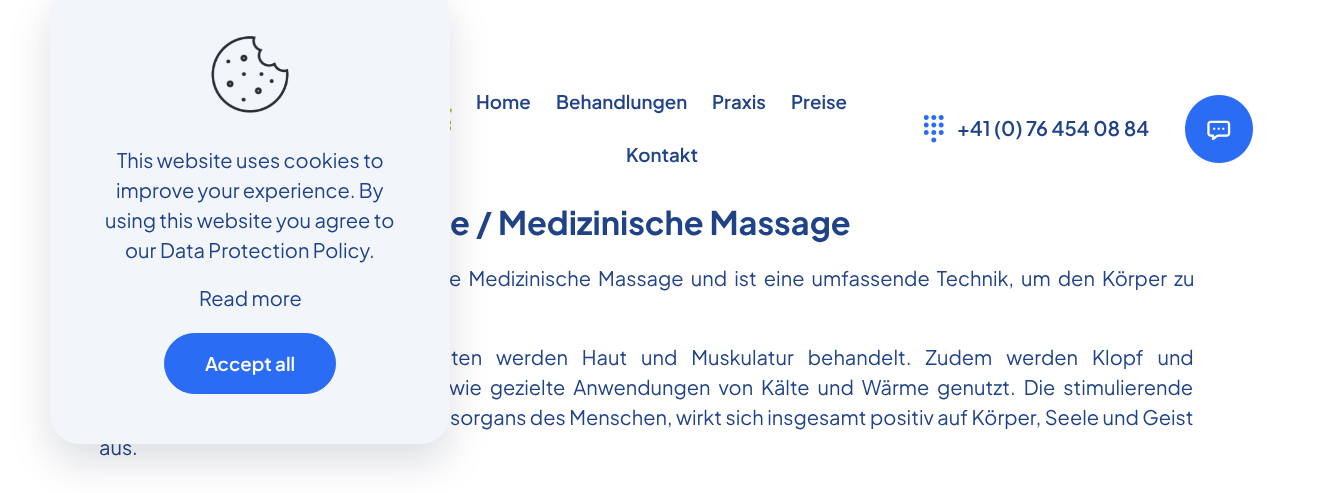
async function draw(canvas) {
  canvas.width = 1342;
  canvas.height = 493;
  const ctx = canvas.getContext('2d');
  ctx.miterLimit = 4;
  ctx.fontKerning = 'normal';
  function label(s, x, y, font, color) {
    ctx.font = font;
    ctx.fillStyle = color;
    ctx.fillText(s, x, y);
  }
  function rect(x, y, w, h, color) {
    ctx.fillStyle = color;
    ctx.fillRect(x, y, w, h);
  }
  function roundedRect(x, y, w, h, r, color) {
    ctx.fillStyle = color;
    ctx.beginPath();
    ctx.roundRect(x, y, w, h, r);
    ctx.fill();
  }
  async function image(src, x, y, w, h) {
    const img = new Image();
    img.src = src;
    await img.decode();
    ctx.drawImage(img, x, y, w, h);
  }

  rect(0, 0, 1342, 493, '#fff');
  await image('assets/img1.png', 450, 108, 2, 23);
  roundedRect(451, 70, 422, 116, 48, '#fff');
  label('Home', 476, 109, '600 18.75px Plus Jakarta Sans', '#204289');
  label('Behandlungen', 556, 109, '600 18.75px Plus Jakarta Sans', '#204289');
  label('Praxis', 712, 109, '600 18.75px Plus Jakarta Sans', '#204289');
  label('Preise', 791, 109, '600 18.75px Plus Jakarta Sans', '#204289');
  label('Kontakt', 626, 162, '600 18.75px Plus Jakarta Sans', '#204289');
  await image('assets/img2.png', 924, 115, 20, 28);
  label('+41 (0) 76 454 08 84', 957, 136, '600 20px Plus Jakarta Sans', '#204289');
  await image('assets/img3.png', 1185, 95, 68, 68);
  label('e / Medizinische Massage', 450, 235, 'bold 32.5px Plus Jakarta Sans', '#204289');
  ctx.wordSpacing = '3.75px';
  label('e Medizinische Massage und ist eine umfassende Technik, um den Körper zu', 449, 286, '20px Plus Jakarta Sans', '#204289');
  ctx.wordSpacing = '10.5px';
  label('ten werden Haut und Muskulatur behandelt. Zudem werden Klopf und', 451, 365, '20px Plus Jakarta Sans', '#204289');
  ctx.wordSpacing = '4.5px';
  label('wie gezielte Anwendungen von Kälte und Wärme genutzt. Die stimulierende', 449, 395, '20px Plus Jakarta Sans', '#204289');
  ctx.wordSpacing = '0.1px';
  label('sorgans des Menschen, wirkt sich insgesamt positiv auf Körper, Seele und Geist', 450, 425, '20px Plus Jakarta Sans', '#204289');
  ctx.wordSpacing = '0px';
  label('aus.', 99, 455, '20px Plus Jakarta Sans', '#204289');
  ctx.fillStyle = '#01072721';
  ctx.filter = 'blur(19px)';
  ctx.beginPath();
  ctx.roundRect(50, 4, 400, 459, 30);
  ctx.fill();
  ctx.filter = 'none';
  roundedRect(50, -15, 400, 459, 30, '#f2f6fa');
  await image('assets/img4.png', 211, 36, 78, 77);
  label('This website uses cookies to', 117, 168, '20px Plus Jakarta Sans', '#204289');
  label('improve your experience. By', 116, 198, '20px Plus Jakarta Sans', '#204289');
  label('using this website you agree to', 105, 228, '20px Plus Jakarta Sans', '#204289');
  label('our', 125, 258, '20px Plus Jakarta Sans', '#204289');
  label('Data Protection Policy', 160, 258, '20px Plus Jakarta Sans', '#204289');
  label('.', 369, 258, '20px Plus Jakarta Sans', '#204289');
  label('Read more', 199, 306, '20px Plus Jakarta Sans', '#204289');
  ctx.fillStyle = '#2b6cf5';
  ctx.beginPath();
  ctx.roundRect(164.5, 333.5, 171, 60, 30);
  ctx.fill();
  ctx.strokeStyle = '#2b6cf5';
  ctx.stroke();
  label('Accept all', 205, 371, '600 18.75px Plus Jakarta Sans', '#fff');
}

draw(document.querySelector('canvas'));
